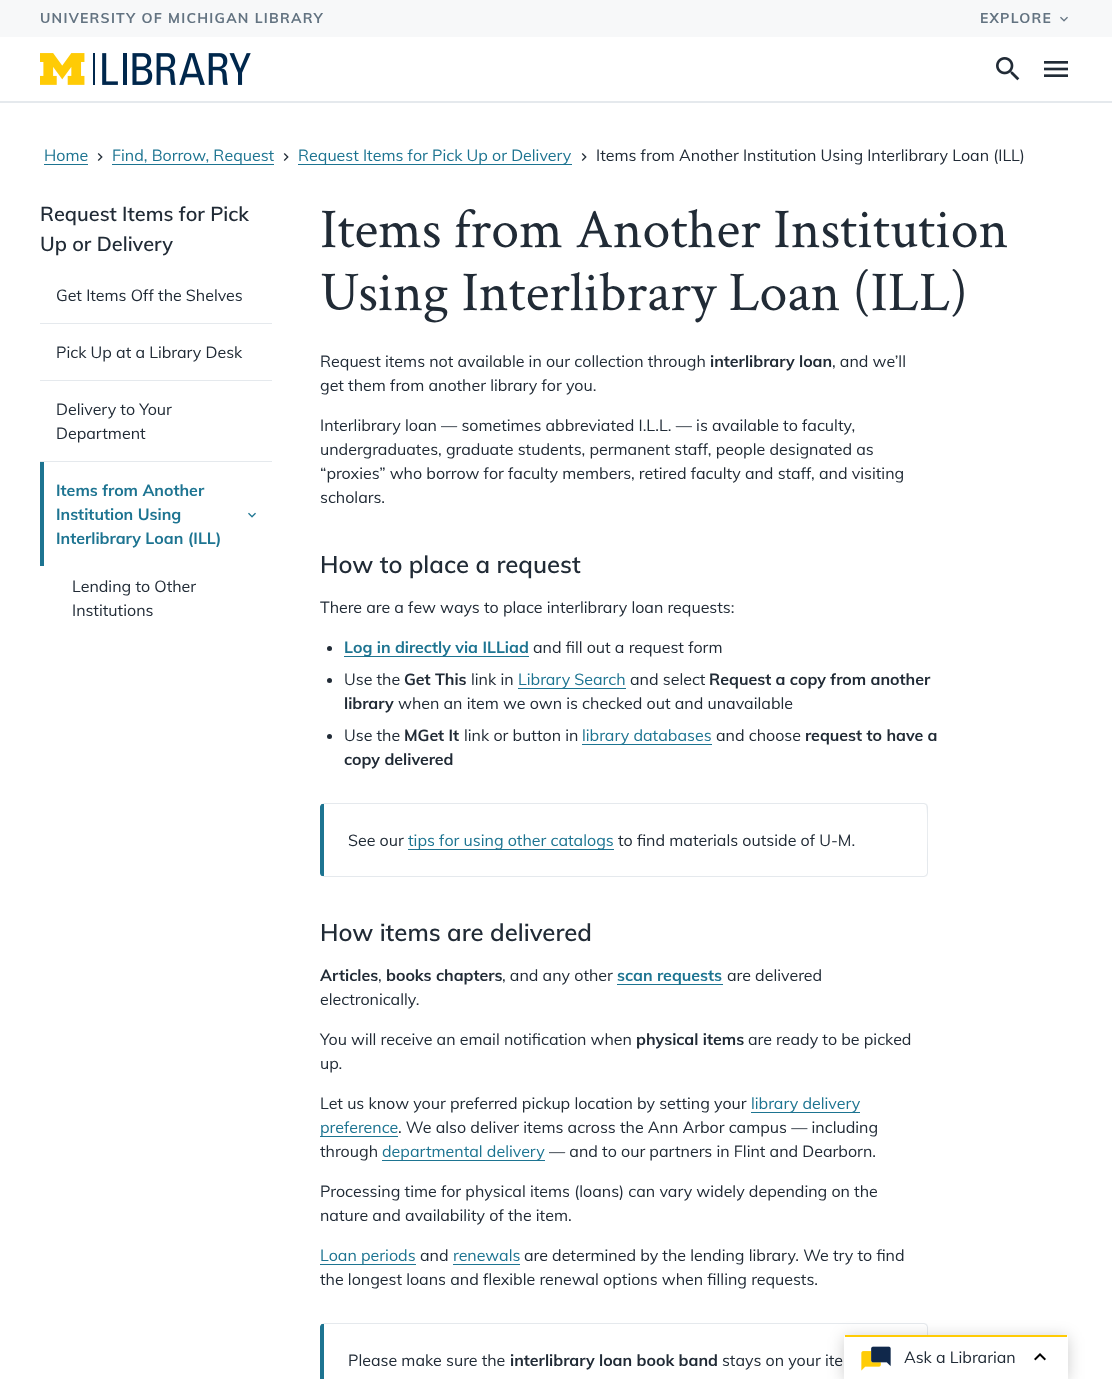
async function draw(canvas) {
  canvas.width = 1112;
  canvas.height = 1379;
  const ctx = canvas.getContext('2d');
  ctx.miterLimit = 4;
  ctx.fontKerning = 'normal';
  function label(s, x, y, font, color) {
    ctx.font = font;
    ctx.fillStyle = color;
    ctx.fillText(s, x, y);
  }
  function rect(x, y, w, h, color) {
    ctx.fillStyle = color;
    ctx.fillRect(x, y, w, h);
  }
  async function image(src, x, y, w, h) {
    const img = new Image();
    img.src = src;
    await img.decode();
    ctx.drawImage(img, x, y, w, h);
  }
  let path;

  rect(0, 0, 1112, 1379, '#fff');
  rect(0, 0, 1112, 37, '#f7f8f9');
  ctx.letterSpacing = '1.25px';
  label('UNIVERSITY OF MICHIGAN LIBRARY', 40, 23, 'bold 14px Muli', '#637381');
  label('EXPLORE', 980, 23, 'bold 14px Muli', '#637381');
  await image('assets/img1.png', 1060, 16, 8, 6);
  rect(0, 101, 1112, 2, '#e5e9ed');
  await image('assets/img2.png', 40, 53, 211, 32);
  await image('assets/img3.png', 996, 57, 24, 24);
  await image('assets/img4.png', 1044, 61, 24, 16);
  ctx.letterSpacing = '0px';
  label('Home', 44, 161, '16px Muli', '#1d7491');
  rect(44, 164, 44, 1, '#1d7491');
  await image('assets/img5.png', 97, 153, 6, 8);
  rect(112, 164, 162, 1, '#1d7491');
  label('Find, Borrow, Request', 112, 161, '16px Muli', '#1d7491');
  await image('assets/img5.png', 283, 153, 6, 8);
  rect(298, 164, 274, 1, '#1d7491');
  label('Request Items for Pick Up or Delivery', 298, 161, '16px Muli', '#1d7491');
  await image('assets/img5.png', 581, 153, 6, 8);
  label('Items from Another Institution Using Interlibrary Loan (ILL)', 596, 161, '16px Muli', '#212b36');
  label('Request Items for Pick', 40, 221, '600 20px Muli', '#212b36');
  label('Up or Delivery', 40, 251, '600 20px Muli', '#212b36');
  rect(40, 323, 232, 1, '#e5e9ed');
  label('Get Items Off the Shelves', 56, 301, '16px Muli', '#212b36');
  rect(40, 380, 232, 1, '#e5e9ed');
  label('Pick Up at a Library Desk', 56, 358, '16px Muli', '#212b36');
  rect(40, 461, 232, 1, '#e5e9ed');
  label('Delivery to Your', 56, 415, '16px Muli', '#212b36');
  label('Department', 56, 439, '16px Muli', '#212b36');
  rect(40, 462, 4, 104, '#1d7491');
  label('Items from Another', 56, 496, 'bold 16px Muli', '#1d7491');
  label('Institution Using', 56, 520, 'bold 16px Muli', '#1d7491');
  await image('assets/img6.png', 248, 512, 8, 6);
  label('Interlibrary Loan (ILL)', 56, 544, 'bold 16px Muli', '#1d7491');
  label('Lending to Other', 72, 592, '16px Muli', '#212b36');
  label('Institutions', 72, 616, '16px Muli', '#212b36');
  label('Items from Another Institution', 320, 247, '56px Crimson Text', '#212b36');
  label('Using Interlibrary Loan (ILL)', 320, 310, '56px Crimson Text', '#212b36');
  label('Request items not available in our collection through', 320, 367, '16px Muli', '#212b36');
  label('interlibrary loan', 710, 367, 'bold 16px Muli', '#212b36');
  label(', and we’ll', 832, 367, '16px Muli', '#212b36');
  label('get them from another library for you.', 320, 391, '16px Muli', '#212b36');
  label('Interlibrary loan — sometimes abbreviated I.L.L. — is available to faculty,', 320, 431, '16px Muli', '#212b36');
  label('undergraduates, graduate students, permanent staff, people designated as', 320, 455, '16px Muli', '#212b36');
  label('“proxies” who borrow for faculty members, retired faculty and staff, and visiting', 320, 479, '16px Muli', '#212b36');
  label('scholars.', 320, 503, '16px Muli', '#212b36');
  label('How to place a request', 320, 573, '600 24px Muli', '#212b36');
  label('There are a few ways to place interlibrary loan requests:', 320, 613, '16px Muli', '#212b36');
  ctx.beginPath();
  ctx.arc(329.5, 648.5, 2.5, 0, 2 * Math.PI);
  ctx.fill();
  rect(344, 656, 185, 1, '#1d7491');
  label('Log in directly via ILLiad', 344, 653, 'bold 16px Muli', '#1d7491');
  label('and fill out a request form', 533, 653, '16px Muli', '#212b36');
  ctx.beginPath();
  ctx.arc(329.5, 680.5, 2.5, 0, 2 * Math.PI);
  ctx.fill();
  label('Use the', 344, 685, '16px Muli', '#212b36');
  label('Get This', 404, 685, 'bold 16px Muli', '#212b36');
  label('link in', 471, 685, '16px Muli', '#212b36');
  rect(518, 688, 108, 1, '#1d7491');
  label('Library Search', 518, 685, '16px Muli', '#1d7491');
  label('and select', 630, 685, '16px Muli', '#212b36');
  label('Request a copy from another', 709, 685, 'bold 16px Muli', '#212b36');
  label('library', 344, 709, 'bold 16px Muli', '#212b36');
  label('when an item we own is checked out and unavailable', 398, 709, '16px Muli', '#212b36');
  ctx.beginPath();
  ctx.arc(329.5, 736.5, 2.5, 0, 2 * Math.PI);
  ctx.fill();
  label('Use the', 344, 741, '16px Muli', '#212b36');
  label('MGet It', 404, 741, 'bold 16px Muli', '#212b36');
  label('link or button in', 464, 741, '16px Muli', '#212b36');
  rect(582, 744, 130, 1, '#1d7491');
  label('library databases', 582, 741, '16px Muli', '#1d7491');
  label('and choose', 716, 741, '16px Muli', '#212b36');
  label('request to have a', 805, 741, 'bold 16px Muli', '#212b36');
  label('copy delivered', 344, 765, 'bold 16px Muli', '#212b36');
  ctx.fillStyle = '#e5e9ed';
  path = new Path2D('M324 803L322 804H324H924L926 805L927 804L924 803Z');
  ctx.fill(path);
  path = new Path2D('M928 873V807L927 804L926 805C928 807 927 856 927 862V873L926 875L927 876Z');
  ctx.fill(path);
  path = new Path2D('M324 877H924L927 876L926 875L924 876H324H322Z');
  ctx.fill(path);
  ctx.fillStyle = '#1d7491';
  path = new Path2D('M324 804H322C321 804 320 806 320 807V873C320 874 321 876 322 876H324Z');
  ctx.fill(path);
  label('See our', 348, 846, '16px Muli', '#212b36');
  rect(408, 849, 206, 1, '#1d7491');
  label('tips for using other catalogs', 408, 846, '16px Muli', '#1d7491');
  label('to find materials outside of U-M.', 618, 846, '16px Muli', '#212b36');
  label('How items are delivered', 320, 941, '600 24px Muli', '#212b36');
  label('Articles', 320, 981, 'bold 16px Muli', '#212b36');
  label(',', 378, 981, '16px Muli', '#212b36');
  label('books chapters', 386, 981, 'bold 16px Muli', '#212b36');
  label(', and any other', 502, 981, '16px Muli', '#212b36');
  rect(617, 984, 106, 1, '#1d7491');
  label('scan requests', 617, 981, 'bold 16px Muli', '#1d7491');
  label('are delivered', 727, 981, '16px Muli', '#212b36');
  label('electronically.', 320, 1005, '16px Muli', '#212b36');
  label('You will receive an email notification when', 320, 1045, '16px Muli', '#212b36');
  label('physical items', 636, 1045, 'bold 16px Muli', '#212b36');
  label('are ready to be picked', 748, 1045, '16px Muli', '#212b36');
  label('up.', 320, 1069, '16px Muli', '#212b36');
  label('Let us know your preferred pickup location by setting your', 320, 1109, '16px Muli', '#212b36');
  rect(751, 1112, 109, 1, '#1d7491');
  label('library delivery', 751, 1109, '16px Muli', '#1d7491');
  rect(320, 1136, 78, 1, '#1d7491');
  label('preference', 320, 1133, '16px Muli', '#1d7491');
  label('. We also deliver items across the Ann Arbor campus — including', 398, 1133, '16px Muli', '#212b36');
  label('through', 320, 1157, '16px Muli', '#212b36');
  rect(382, 1160, 163, 1, '#1d7491');
  label('departmental delivery', 382, 1157, '16px Muli', '#1d7491');
  label('— and to our partners in Flint and Dearborn.', 549, 1157, '16px Muli', '#212b36');
  label('Processing time for physical items (loans) can vary widely depending on the', 320, 1197, '16px Muli', '#212b36');
  label('nature and availability of the item.', 320, 1221, '16px Muli', '#212b36');
  rect(320, 1264, 96, 1, '#1d7491');
  label('Loan periods', 320, 1261, '16px Muli', '#1d7491');
  label('and', 420, 1261, '16px Muli', '#212b36');
  label('renewals', 453, 1261, '16px Muli', '#1d7491');
  rect(453, 1264, 67, 1, '#1d7491');
  label('are determined by the lending library. We try to find', 524, 1261, '16px Muli', '#212b36');
  label('the longest loans and flexible renewal options when filling requests.', 320, 1285, '16px Muli', '#212b36');
  ctx.fillStyle = '#e5e9ed';
  path = new Path2D('M324 1323L322 1324H324H924L926 1325L927 1324L924 1323Z');
  ctx.fill(path);
  path = new Path2D('M928 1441V1327L927 1324L926 1325L927 1327V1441L926 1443L927 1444Z');
  ctx.fill(path);
  ctx.fillStyle = '#1d7491';
  path = new Path2D('M324 1324H322C321 1324 320 1326 320 1327V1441C320 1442 321 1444 322 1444H324Z');
  ctx.fill(path);
  label('Please make sure the', 348, 1366, '16px Muli', '#212b36');
  label('interlibrary loan book band', 510, 1366, 'bold 16px Muli', '#212b36');
  label('stays on your ite', 722, 1366, '16px Muli', '#212b36');
  ctx.fillStyle = '#00000033';
  ctx.filter = 'blur(8px)';
  ctx.beginPath();
  ctx.roundRect(844, 1337, 224, 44, 2);
  ctx.fill();
  ctx.filter = 'none';
  ctx.fillStyle = '#fff';
  ctx.beginPath();
  ctx.roundRect(844, 1335, 224, 44, [2, 2, 0, 0]);
  ctx.fill();
  rect(845, 1335, 222, 2, '#ffcb05');
  await image('assets/img7.png', 861, 1346, 30, 25);
  label('Ask a Librarian', 904, 1363, '16px Muli', '#212b36');
  await image('assets/img8.png', 1034, 1353, 12, 8);
}

draw(document.querySelector('canvas'));
